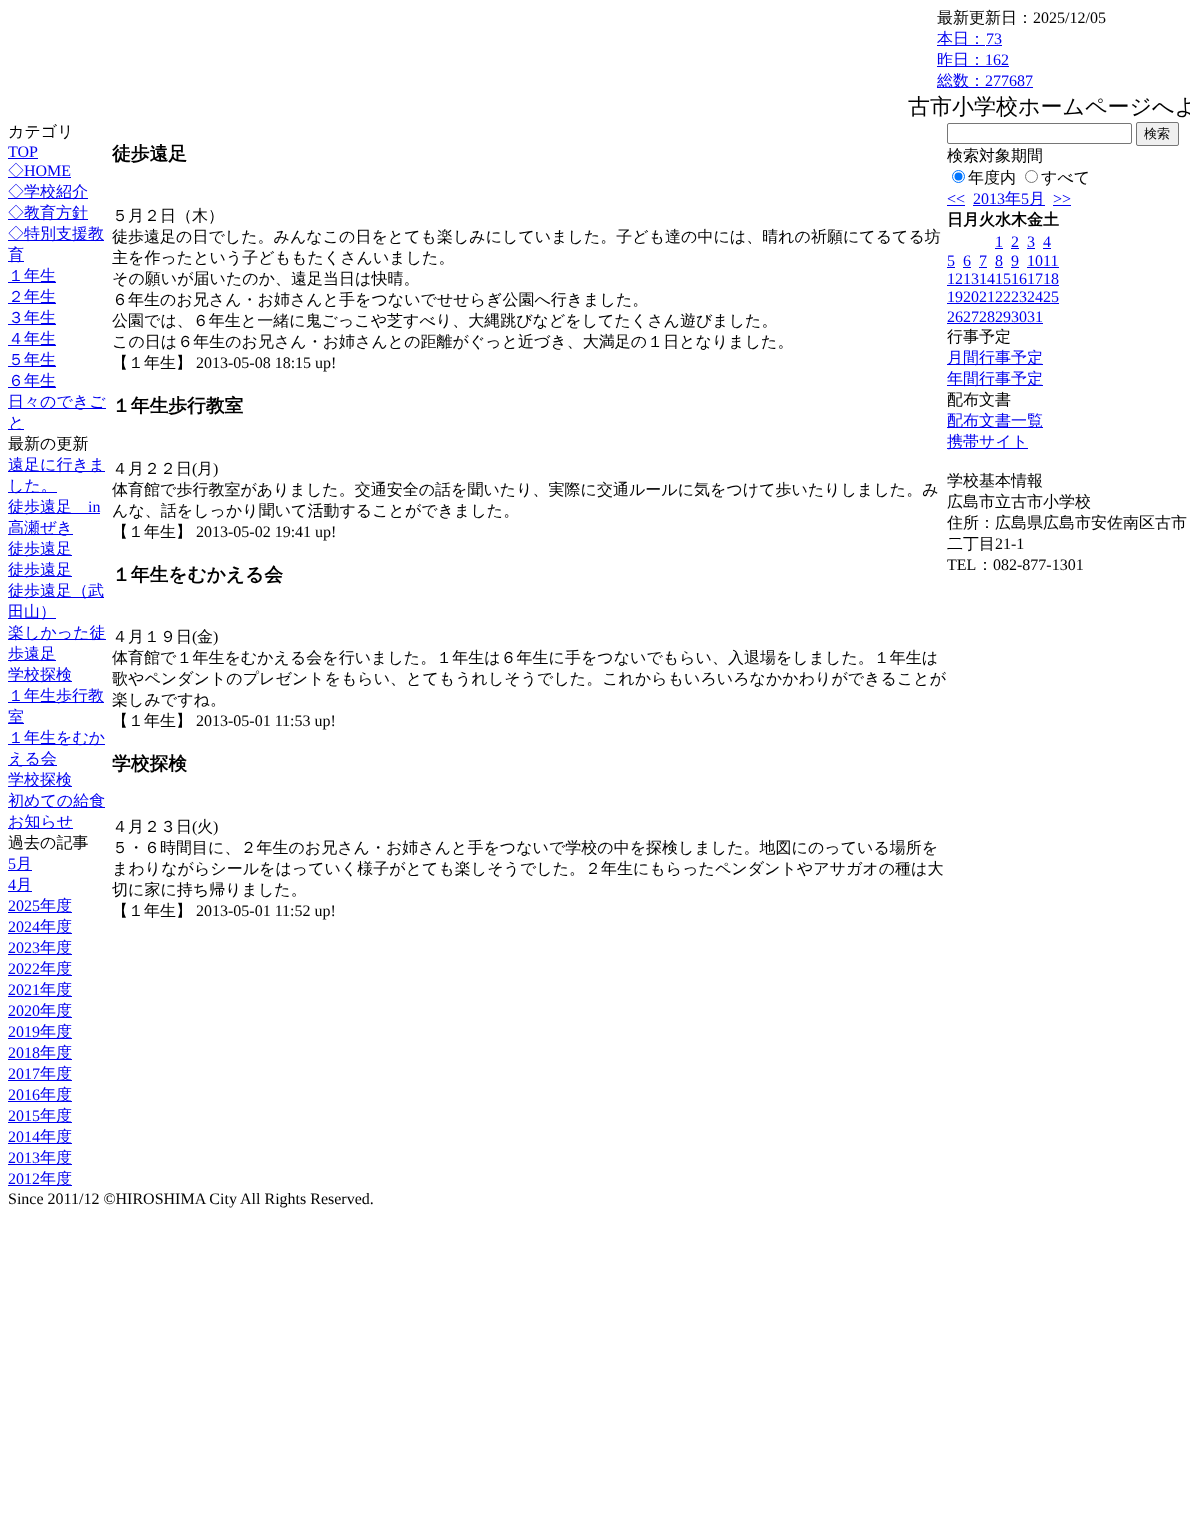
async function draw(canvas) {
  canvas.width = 1198;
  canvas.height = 1537;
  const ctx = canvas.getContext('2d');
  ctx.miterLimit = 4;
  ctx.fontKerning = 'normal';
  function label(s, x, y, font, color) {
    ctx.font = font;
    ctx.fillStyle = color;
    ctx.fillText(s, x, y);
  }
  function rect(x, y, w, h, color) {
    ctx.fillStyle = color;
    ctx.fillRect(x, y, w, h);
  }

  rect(0, 0, 1198, 1537, '#fff');
  label('最新更新日：', 937, 23, '500 16px WenQuanYi Zen Hei', '#000');
  label('2025/12/05', 1033, 23, '16px Liberation Serif', '#000');
  rect(937, 45, 48, 1, '#00e');
  label('本日：', 937, 44, '500 16px WenQuanYi Zen Hei', '#00e');
  label('73', 986, 44, '16px Liberation Serif', '#00e');
  rect(986, 45, 16, 1, '#00e');
  rect(937, 66, 72, 1, '#00e');
  label('昨日：', 937, 65, '500 16px WenQuanYi Zen Hei', '#00e');
  label('162', 985, 65, '16px Liberation Serif', '#00e');
  rect(937, 87, 96, 1, '#00e');
  label('総数：', 937, 86, '500 16px WenQuanYi Zen Hei', '#00e');
  label('277687', 985, 86, '16px Liberation Serif', '#00e');
  ctx.save();
  ctx.beginPath();
  ctx.rect(8, 92, 1182, 30);
  ctx.clip();
  label('古市小学校ホームページへよ', 908, 114, '500 22px WenQuanYi Zen Hei', '#000');
  ctx.restore();
  label('カテゴリ', 8, 137, '500 16px WenQuanYi Zen Hei', '#000');
  label('TOP', 8, 157, '16px Liberation Serif', '#00e');
  rect(8, 158, 30, 1, '#00e');
  rect(8, 177, 63, 1, '#00e');
  label('◇', 8, 176, '500 16px WenQuanYi Zen Hei', '#00e');
  label('HOME', 24, 176, '16px Liberation Serif', '#00e');
  rect(8, 198, 80, 1, '#00e');
  label('◇学校紹介', 8, 197, '500 16px WenQuanYi Zen Hei', '#00e');
  rect(8, 219, 80, 1, '#00e');
  label('◇教育方針', 8, 218, '500 16px WenQuanYi Zen Hei', '#00e');
  rect(8, 240, 96, 1, '#00e');
  label('◇特別支援教', 8, 239, '500 16px WenQuanYi Zen Hei', '#00e');
  rect(8, 261, 16, 1, '#00e');
  label('育', 8, 260, '500 16px WenQuanYi Zen Hei', '#00e');
  rect(8, 282, 48, 1, '#00e');
  label('１年生', 8, 281, '500 16px WenQuanYi Zen Hei', '#00e');
  rect(8, 303, 48, 1, '#00e');
  label('２年生', 8, 302, '500 16px WenQuanYi Zen Hei', '#00e');
  rect(8, 324, 48, 1, '#00e');
  label('３年生', 8, 323, '500 16px WenQuanYi Zen Hei', '#00e');
  rect(8, 345, 48, 1, '#00e');
  label('４年生', 8, 344, '500 16px WenQuanYi Zen Hei', '#00e');
  rect(8, 366, 48, 1, '#00e');
  label('５年生', 8, 365, '500 16px WenQuanYi Zen Hei', '#00e');
  rect(8, 387, 48, 1, '#00e');
  label('６年生', 8, 386, '500 16px WenQuanYi Zen Hei', '#00e');
  rect(8, 408, 98, 1, '#00e');
  label('日々のできご', 8, 407, '500 16px WenQuanYi Zen Hei', '#00e');
  rect(8, 429, 16, 1, '#00e');
  label('と', 8, 428, '500 16px WenQuanYi Zen Hei', '#00e');
  label('最新の更新', 8, 449, '500 16px WenQuanYi Zen Hei', '#000');
  rect(8, 471, 97, 1, '#00e');
  label('遠足に行きま', 8, 470, '500 16px WenQuanYi Zen Hei', '#00e');
  rect(8, 492, 49, 1, '#00e');
  label('した。', 8, 491, '500 16px WenQuanYi Zen Hei', '#00e');
  rect(8, 513, 92, 1, '#00e');
  label('徒歩遠足', 8, 512, '500 16px WenQuanYi Zen Hei', '#00e');
  label('in', 88, 512, '16px Liberation Serif', '#00e');
  rect(8, 534, 65, 1, '#00e');
  label('高瀬ぜき', 8, 533, '500 16px WenQuanYi Zen Hei', '#00e');
  rect(8, 555, 64, 1, '#00e');
  label('徒歩遠足', 8, 554, '500 16px WenQuanYi Zen Hei', '#00e');
  rect(8, 576, 64, 1, '#00e');
  label('徒歩遠足', 8, 575, '500 16px WenQuanYi Zen Hei', '#00e');
  rect(8, 597, 96, 1, '#00e');
  label('徒歩遠足（武', 8, 596, '500 16px WenQuanYi Zen Hei', '#00e');
  rect(8, 618, 48, 1, '#00e');
  label('田山）', 8, 617, '500 16px WenQuanYi Zen Hei', '#00e');
  rect(8, 639, 98, 1, '#00e');
  label('楽しかった徒', 8, 638, '500 16px WenQuanYi Zen Hei', '#00e');
  rect(8, 660, 48, 1, '#00e');
  label('歩遠足', 8, 659, '500 16px WenQuanYi Zen Hei', '#00e');
  rect(8, 681, 64, 1, '#00e');
  label('学校探検', 8, 680, '500 16px WenQuanYi Zen Hei', '#00e');
  rect(8, 702, 96, 1, '#00e');
  label('１年生歩行教', 8, 701, '500 16px WenQuanYi Zen Hei', '#00e');
  rect(8, 723, 16, 1, '#00e');
  label('室', 8, 722, '500 16px WenQuanYi Zen Hei', '#00e');
  rect(8, 744, 97, 1, '#00e');
  label('１年生をむか', 8, 743, '500 16px WenQuanYi Zen Hei', '#00e');
  rect(8, 765, 49, 1, '#00e');
  label('える会', 8, 764, '500 16px WenQuanYi Zen Hei', '#00e');
  rect(8, 786, 64, 1, '#00e');
  label('学校探検', 8, 785, '500 16px WenQuanYi Zen Hei', '#00e');
  rect(8, 807, 97, 1, '#00e');
  label('初めての給食', 8, 806, '500 16px WenQuanYi Zen Hei', '#00e');
  rect(8, 828, 65, 1, '#00e');
  label('お知らせ', 8, 827, '500 16px WenQuanYi Zen Hei', '#00e');
  label('過去の記事', 8, 848, '500 16px WenQuanYi Zen Hei', '#000');
  label('5', 8, 869, '16px Liberation Serif', '#00e');
  rect(8, 870, 24, 1, '#00e');
  label('月', 16, 869, '500 16px WenQuanYi Zen Hei', '#00e');
  label('4', 8, 890, '16px Liberation Serif', '#00e');
  rect(8, 891, 24, 1, '#00e');
  label('月', 16, 890, '500 16px WenQuanYi Zen Hei', '#00e');
  label('2025', 8, 911, '16px Liberation Serif', '#00e');
  rect(8, 912, 64, 1, '#00e');
  label('年度', 40, 911, '500 16px WenQuanYi Zen Hei', '#00e');
  label('2024', 8, 932, '16px Liberation Serif', '#00e');
  rect(8, 933, 64, 1, '#00e');
  label('年度', 40, 932, '500 16px WenQuanYi Zen Hei', '#00e');
  label('2023', 8, 953, '16px Liberation Serif', '#00e');
  rect(8, 954, 64, 1, '#00e');
  label('年度', 40, 953, '500 16px WenQuanYi Zen Hei', '#00e');
  label('2022', 8, 974, '16px Liberation Serif', '#00e');
  rect(8, 975, 64, 1, '#00e');
  label('年度', 40, 974, '500 16px WenQuanYi Zen Hei', '#00e');
  label('2021', 8, 995, '16px Liberation Serif', '#00e');
  rect(8, 996, 64, 1, '#00e');
  label('年度', 40, 995, '500 16px WenQuanYi Zen Hei', '#00e');
  label('2020', 8, 1016, '16px Liberation Serif', '#00e');
  rect(8, 1017, 64, 1, '#00e');
  label('年度', 40, 1016, '500 16px WenQuanYi Zen Hei', '#00e');
  label('2019', 8, 1037, '16px Liberation Serif', '#00e');
  rect(8, 1038, 64, 1, '#00e');
  label('年度', 40, 1037, '500 16px WenQuanYi Zen Hei', '#00e');
  label('2018', 8, 1058, '16px Liberation Serif', '#00e');
  rect(8, 1059, 64, 1, '#00e');
  label('年度', 40, 1058, '500 16px WenQuanYi Zen Hei', '#00e');
  label('2017', 8, 1079, '16px Liberation Serif', '#00e');
  rect(8, 1080, 64, 1, '#00e');
  label('年度', 40, 1079, '500 16px WenQuanYi Zen Hei', '#00e');
  label('2016', 8, 1100, '16px Liberation Serif', '#00e');
  rect(8, 1101, 64, 1, '#00e');
  label('年度', 40, 1100, '500 16px WenQuanYi Zen Hei', '#00e');
  label('2015', 8, 1121, '16px Liberation Serif', '#00e');
  rect(8, 1122, 64, 1, '#00e');
  label('年度', 40, 1121, '500 16px WenQuanYi Zen Hei', '#00e');
  label('2014', 8, 1142, '16px Liberation Serif', '#00e');
  rect(8, 1143, 64, 1, '#00e');
  label('年度', 40, 1142, '500 16px WenQuanYi Zen Hei', '#00e');
  label('2013', 8, 1163, '16px Liberation Serif', '#00e');
  rect(8, 1164, 64, 1, '#00e');
  label('年度', 40, 1163, '500 16px WenQuanYi Zen Hei', '#00e');
  label('2012', 8, 1184, '16px Liberation Serif', '#00e');
  rect(8, 1185, 64, 1, '#00e');
  label('年度', 40, 1184, '500 16px WenQuanYi Zen Hei', '#00e');
  label('徒歩遠足', 112, 160, 'bold 18.75px WenQuanYi Zen Hei', '#000');
  label('５月２日（木）', 112, 221, '500 16px WenQuanYi Zen Hei', '#000');
  label('徒歩遠足の日でした。みんなこの日をとても楽しみにしていました。子ども達の中には、晴れの祈願にてるてる坊', 112, 242, '500 16px WenQuanYi Zen Hei', '#000');
  label('主を作ったという子どももたくさんいました。', 112, 263, '500 16px WenQuanYi Zen Hei', '#000');
  label('その願いが届いたのか、遠足当日は快晴。', 112, 284, '500 16px WenQuanYi Zen Hei', '#000');
  label('６年生のお兄さん・お姉さんと手をつないでせせらぎ公園へ行きました。', 112, 305, '500 16px WenQuanYi Zen Hei', '#000');
  label('公園では、６年生と一緒に鬼ごっこや芝すべり、大縄跳びなどをしてたくさん遊びました。', 112, 326, '500 16px WenQuanYi Zen Hei', '#000');
  label('この日は６年生のお兄さん・お姉さんとの距離がぐっと近づき、大満足の１日となりました。', 112, 347, '500 16px WenQuanYi Zen Hei', '#000');
  label('【１年生】', 112, 368, '500 16px WenQuanYi Zen Hei', '#000');
  label('2013-05-08 18:15 up!', 196, 368, '16px Liberation Serif', '#000');
  label('１年生歩行教室', 112, 412, 'bold 18.75px WenQuanYi Zen Hei', '#000');
  label('４月２２日', 112, 474, '500 16px WenQuanYi Zen Hei', '#000');
  label('(', 192, 474, '16px Liberation Serif', '#000');
  label('月', 197, 474, '500 16px WenQuanYi Zen Hei', '#000');
  label(')', 213, 474, '16px Liberation Serif', '#000');
  label('体育館で歩行教室がありました。交通安全の話を聞いたり、実際に交通ルールに気をつけて歩いたりしました。み', 112, 495, '500 16px WenQuanYi Zen Hei', '#000');
  label('んな、話をしっかり聞いて活動することができました。', 112, 516, '500 16px WenQuanYi Zen Hei', '#000');
  label('【１年生】', 112, 537, '500 16px WenQuanYi Zen Hei', '#000');
  label('2013-05-02 19:41 up!', 196, 537, '16px Liberation Serif', '#000');
  label('１年生をむかえる会', 112, 581, 'bold 18.75px WenQuanYi Zen Hei', '#000');
  label('４月１９日', 112, 642, '500 16px WenQuanYi Zen Hei', '#000');
  label('(', 192, 642, '16px Liberation Serif', '#000');
  label('金', 197, 642, '500 16px WenQuanYi Zen Hei', '#000');
  label(')', 213, 642, '16px Liberation Serif', '#000');
  label('体育館で１年生をむかえる会を行いました。１年生は６年生に手をつないでもらい、入退場をしました。１年生は', 112, 663, '500 16px WenQuanYi Zen Hei', '#000');
  label('歌やペンダントのプレゼントをもらい、とてもうれしそうでした。これからもいろいろなかかわりができることが', 112, 684, '500 16px WenQuanYi Zen Hei', '#000');
  label('楽しみですね。', 112, 705, '500 16px WenQuanYi Zen Hei', '#000');
  label('【１年生】', 112, 726, '500 16px WenQuanYi Zen Hei', '#000');
  label('2013-05-01 11:53 up!', 196, 726, '16px Liberation Serif', '#000');
  label('学校探検', 112, 770, 'bold 18.75px WenQuanYi Zen Hei', '#000');
  label('４月２３日', 112, 832, '500 16px WenQuanYi Zen Hei', '#000');
  label('(', 192, 832, '16px Liberation Serif', '#000');
  label('火', 197, 832, '500 16px WenQuanYi Zen Hei', '#000');
  label(')', 213, 832, '16px Liberation Serif', '#000');
  label('５・６時間目に、２年生のお兄さん・お姉さんと手をつないで学校の中を探検しました。地図にのっている場所を', 112, 853, '500 16px WenQuanYi Zen Hei', '#000');
  label('まわりながらシールをはっていく様子がとても楽しそうでした。２年生にもらったペンダントやアサガオの種は大', 112, 874, '500 16px WenQuanYi Zen Hei', '#000');
  label('切に家に持ち帰りました。', 112, 895, '500 16px WenQuanYi Zen Hei', '#000');
  label('【１年生】', 112, 916, '500 16px WenQuanYi Zen Hei', '#000');
  label('2013-05-01 11:52 up!', 196, 916, '16px Liberation Serif', '#000');
  ctx.beginPath();
  ctx.roundRect(947.5, 123.5, 184, 20, 1.5);
  ctx.strokeStyle = '#767676';
  ctx.stroke();
  ctx.fillStyle = '#efefef';
  ctx.beginPath();
  ctx.roundRect(1136.5, 122.5, 42, 23, 1.5);
  ctx.fill();
  ctx.stroke();
  label('検索', 1144, 138, '500 13px WenQuanYi Zen Hei', '#000');
  label('検索対象期間', 947, 161, '500 16px WenQuanYi Zen Hei', '#000');
  ctx.beginPath();
  ctx.arc(958.5, 176.5, 6, 0, 2 * Math.PI);
  ctx.strokeStyle = '#0075ff';
  ctx.stroke();
  ctx.fillStyle = '#0075ff';
  ctx.beginPath();
  ctx.arc(958.5, 176.5, 4, 0, 2 * Math.PI);
  ctx.fill();
  label('年度内', 968, 183, '500 16px WenQuanYi Zen Hei', '#000');
  ctx.beginPath();
  ctx.arc(1031.5, 176.5, 6, 0, 2 * Math.PI);
  ctx.strokeStyle = '#767676';
  ctx.stroke();
  label('すべて', 1041, 183, '500 16px WenQuanYi Zen Hei', '#000');
  label('<<', 947, 204, '16px Liberation Serif', '#00e');
  rect(947, 205, 18, 1, '#00e');
  label('2013', 973, 204, '16px Liberation Serif', '#00e');
  rect(973, 205, 72, 1, '#00e');
  label('年', 1005, 204, '500 16px WenQuanYi Zen Hei', '#00e');
  label('5', 1021, 204, '16px Liberation Serif', '#00e');
  label('月', 1029, 204, '500 16px WenQuanYi Zen Hei', '#00e');
  label('>>', 1053, 204, '16px Liberation Serif', '#00e');
  rect(1053, 205, 18, 1, '#00e');
  label('日月火水木金土', 947, 225, 'bold 16px WenQuanYi Zen Hei', '#000');
  label('1', 995, 247, '16px Liberation Serif', '#00e');
  rect(995, 248, 8, 1, '#00e');
  label('2', 1011, 247, '16px Liberation Serif', '#00e');
  rect(1011, 248, 8, 1, '#00e');
  label('3', 1027, 247, '16px Liberation Serif', '#00e');
  rect(1027, 248, 8, 1, '#00e');
  label('4', 1043, 247, '16px Liberation Serif', '#00e');
  rect(1043, 248, 8, 1, '#00e');
  label('5', 947, 266, '16px Liberation Serif', '#00e');
  rect(947, 267, 8, 1, '#00e');
  label('6', 963, 266, '16px Liberation Serif', '#00e');
  rect(963, 267, 8, 1, '#00e');
  label('7', 979, 266, '16px Liberation Serif', '#00e');
  rect(979, 267, 8, 1, '#00e');
  label('8', 995, 266, '16px Liberation Serif', '#00e');
  rect(995, 267, 8, 1, '#00e');
  label('9', 1011, 266, '16px Liberation Serif', '#00e');
  rect(1011, 267, 8, 1, '#00e');
  label('1011', 1027, 266, '16px Liberation Serif', '#00e');
  rect(1027, 267, 32, 1, '#00e');
  label('12131415161718', 947, 284, '16px Liberation Serif', '#00e');
  rect(947, 285, 112, 1, '#00e');
  label('19202122232425', 947, 302, '16px Liberation Serif', '#00e');
  rect(947, 303, 112, 1, '#00e');
  label('262728293031', 947, 322, '16px Liberation Serif', '#00e');
  rect(947, 323, 96, 1, '#00e');
  label('行事予定', 947, 342, '500 16px WenQuanYi Zen Hei', '#000');
  rect(947, 364, 96, 1, '#00e');
  label('月間行事予定', 947, 363, '500 16px WenQuanYi Zen Hei', '#00e');
  rect(947, 385, 96, 1, '#00e');
  label('年間行事予定', 947, 384, '500 16px WenQuanYi Zen Hei', '#00e');
  label('配布文書', 947, 405, '500 16px WenQuanYi Zen Hei', '#000');
  rect(947, 427, 96, 1, '#00e');
  label('配布文書一覧', 947, 426, '500 16px WenQuanYi Zen Hei', '#00e');
  rect(947, 448, 81, 1, '#00e');
  label('携帯サイト', 947, 447, '500 16px WenQuanYi Zen Hei', '#00e');
  label('学校基本情報', 947, 486, '500 16px WenQuanYi Zen Hei', '#000');
  label('広島市立古市小学校', 947, 507, '500 16px WenQuanYi Zen Hei', '#000');
  label('住所：広島県広島市安佐南区古市', 947, 528, '500 16px WenQuanYi Zen Hei', '#000');
  label('二丁目', 947, 549, '500 16px WenQuanYi Zen Hei', '#000');
  label('21-1', 995, 549, '16px Liberation Serif', '#000');
  label('TEL', 947, 570, '16px Liberation Serif', '#000');
  label('：', 977, 570, '500 16px WenQuanYi Zen Hei', '#000');
  label('082-877-1301', 993, 570, '16px Liberation Serif', '#000');
  label('Since 2011/12 ©HIROSHIMA City All Rights Reserved.', 8, 1204, '16px Liberation Serif', '#000');
}

draw(document.querySelector('canvas'));
